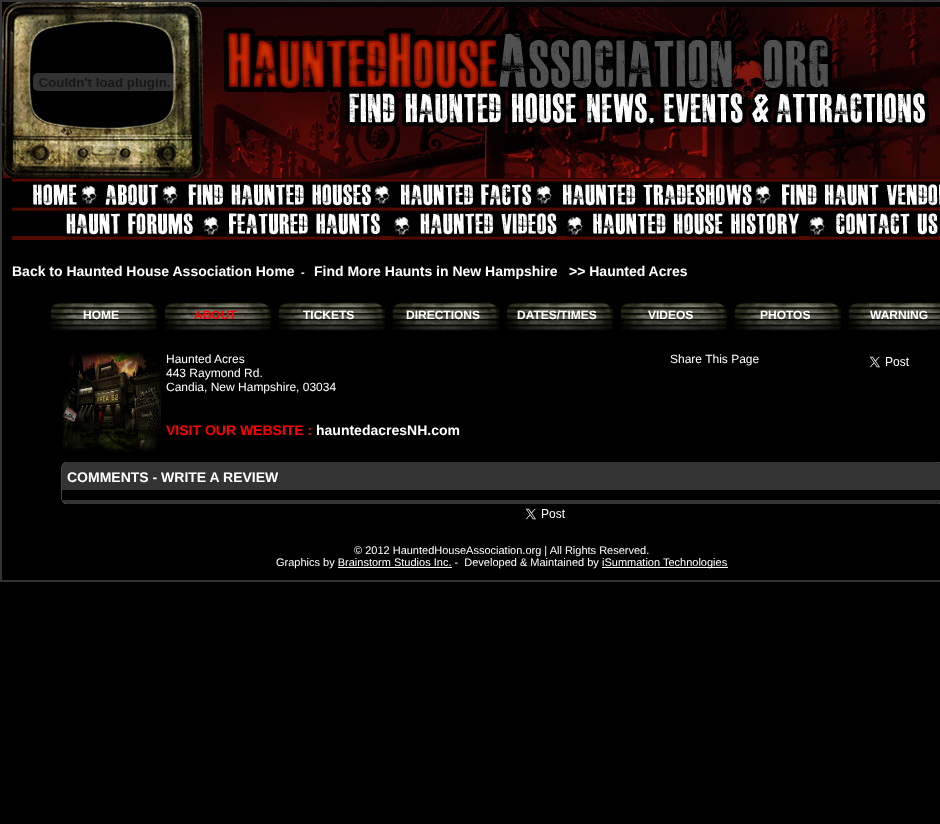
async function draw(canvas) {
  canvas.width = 940;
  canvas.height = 824;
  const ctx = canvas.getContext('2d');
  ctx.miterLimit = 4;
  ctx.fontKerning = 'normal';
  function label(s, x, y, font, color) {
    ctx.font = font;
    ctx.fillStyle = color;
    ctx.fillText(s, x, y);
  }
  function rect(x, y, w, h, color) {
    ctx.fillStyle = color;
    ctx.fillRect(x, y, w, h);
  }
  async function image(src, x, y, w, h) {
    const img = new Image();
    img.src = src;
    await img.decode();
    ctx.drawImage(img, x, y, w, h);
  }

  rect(0, 0, 940, 824, '#000');
  ctx.strokeStyle = '#333';
  ctx.lineWidth = 2;
  ctx.strokeRect(1, 1, 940, 580);
  await image('assets/img1.png', 2, 2, 938, 176);
  await image('assets/img2.png', 33, 73, 143, 18);
  await image('assets/img3.png', 12, 178, 743, 33);
  await image('assets/img4.png', 33, 178, 45, 33);
  await image('assets/img5.png', 81, 179, 77, 31);
  await image('assets/img6.png', 162, 178, 209, 33);
  await image('assets/img7.png', 374, 178, 158, 33);
  await image('assets/img8.png', 536, 178, 216, 33);
  await image('assets/img9.png', 755, 178, 185, 33);
  rect(12, 236, 928, 4, '#500a00');
  await image('assets/img10.png', 66, 211, 127, 29);
  await image('assets/img11.png', 203, 211, 177, 29);
  await image('assets/img12.png', 394, 211, 163, 29);
  await image('assets/img13.png', 567, 211, 232, 29);
  await image('assets/img14.png', 809, 211, 129, 29);
  label('Back to Haunted House Association Home', 12, 276, 'bold 14px Liberation Sans', '#fff');
  label('-', 301, 276, 'bold 11px Liberation Sans', '#fff');
  label('Find More Haunts in New Hampshire', 314, 276, 'bold 14px Liberation Sans', '#fff');
  label('>> Haunted Acres', 569, 276, 'bold 14px Liberation Sans', '#fff');
  await image('assets/img15.png', 47, 301, 112, 30);
  label('HOME', 83, 319, 'bold 12px Liberation Sans', '#fff');
  await image('assets/img15.png', 161, 301, 112, 30);
  label('ABOUT', 194, 319, 'bold 12px Liberation Sans', '#f00');
  await image('assets/img15.png', 275, 301, 112, 30);
  label('TICKETS', 303, 319, 'bold 12px Liberation Sans', '#fff');
  await image('assets/img15.png', 389, 301, 112, 30);
  label('DIRECTIONS', 406, 319, 'bold 12px Liberation Sans', '#fff');
  await image('assets/img15.png', 503, 301, 112, 30);
  label('DATES/TIMES', 517, 319, 'bold 12px Liberation Sans', '#fff');
  await image('assets/img15.png', 617, 301, 112, 30);
  label('VIDEOS', 648, 319, 'bold 12px Liberation Sans', '#fff');
  await image('assets/img15.png', 731, 301, 112, 30);
  label('PHOTOS', 760, 319, 'bold 12px Liberation Sans', '#fff');
  await image('assets/img16.png', 845, 302, 95, 29);
  label('WARNING', 870, 319, 'bold 12px Liberation Sans', '#fff');
  await image('assets/img17.png', 62, 352, 99, 100);
  label('Haunted Acres', 166, 363, '12px Liberation Sans', '#fff');
  label('443 Raymond Rd.', 166, 377, '12px Liberation Sans', '#fff');
  label('Candia, New Hampshire, 03034', 166, 391, '12px Liberation Sans', '#fff');
  label('VISIT OUR WEBSITE :', 166, 435, 'bold 14px Liberation Sans', '#f00');
  label('hauntedacresNH.com', 316, 435, 'bold 14px Liberation Sans', '#fff');
  label('Share This Page', 670, 363, '12px Liberation Sans', '#fff');
  await image('assets/img18.png', 869, 356, 40, 12);
  rect(64, 462, 876, 1, '#333');
  rect(938, 462, 2, 1, '#444');
  rect(64, 462, 2, 1, '#444');
  rect(63, 463, 877, 1, '#333');
  rect(63, 463, 1, 1, '#444');
  rect(62, 464, 878, 26, '#333');
  rect(62, 464, 1, 2, '#444');
  rect(61, 466, 1, 34, '#444');
  label('COMMENTS - WRITE A REVIEW', 67, 482, 'bold 14px Liberation Sans', '#fff');
  rect(62, 500, 878, 2, '#333');
  rect(62, 500, 1, 2, '#444');
  rect(63, 502, 877, 1, '#333');
  rect(63, 502, 1, 1, '#444');
  rect(64, 503, 876, 1, '#333');
  rect(938, 503, 2, 1, '#444');
  rect(64, 503, 2, 1, '#444');
  await image('assets/img19.png', 525, 508, 40, 12);
  label('© 2012 HauntedHouseAssociation.org | All Rights Reserved.', 354, 554, '11px Liberation Sans', '#fff');
  label('Graphics by Brainstorm Studios Inc. -  Developed & Maintained by', 276, 566, '11px Liberation Sans', '#fff');
  rect(602, 567, 126, 1, '#fff');
  label('iSummation Technologies', 602, 566, '11px Liberation Sans', '#fff');
  rect(338, 567, 114, 1, '#fff');
}

draw(document.querySelector('canvas'));
